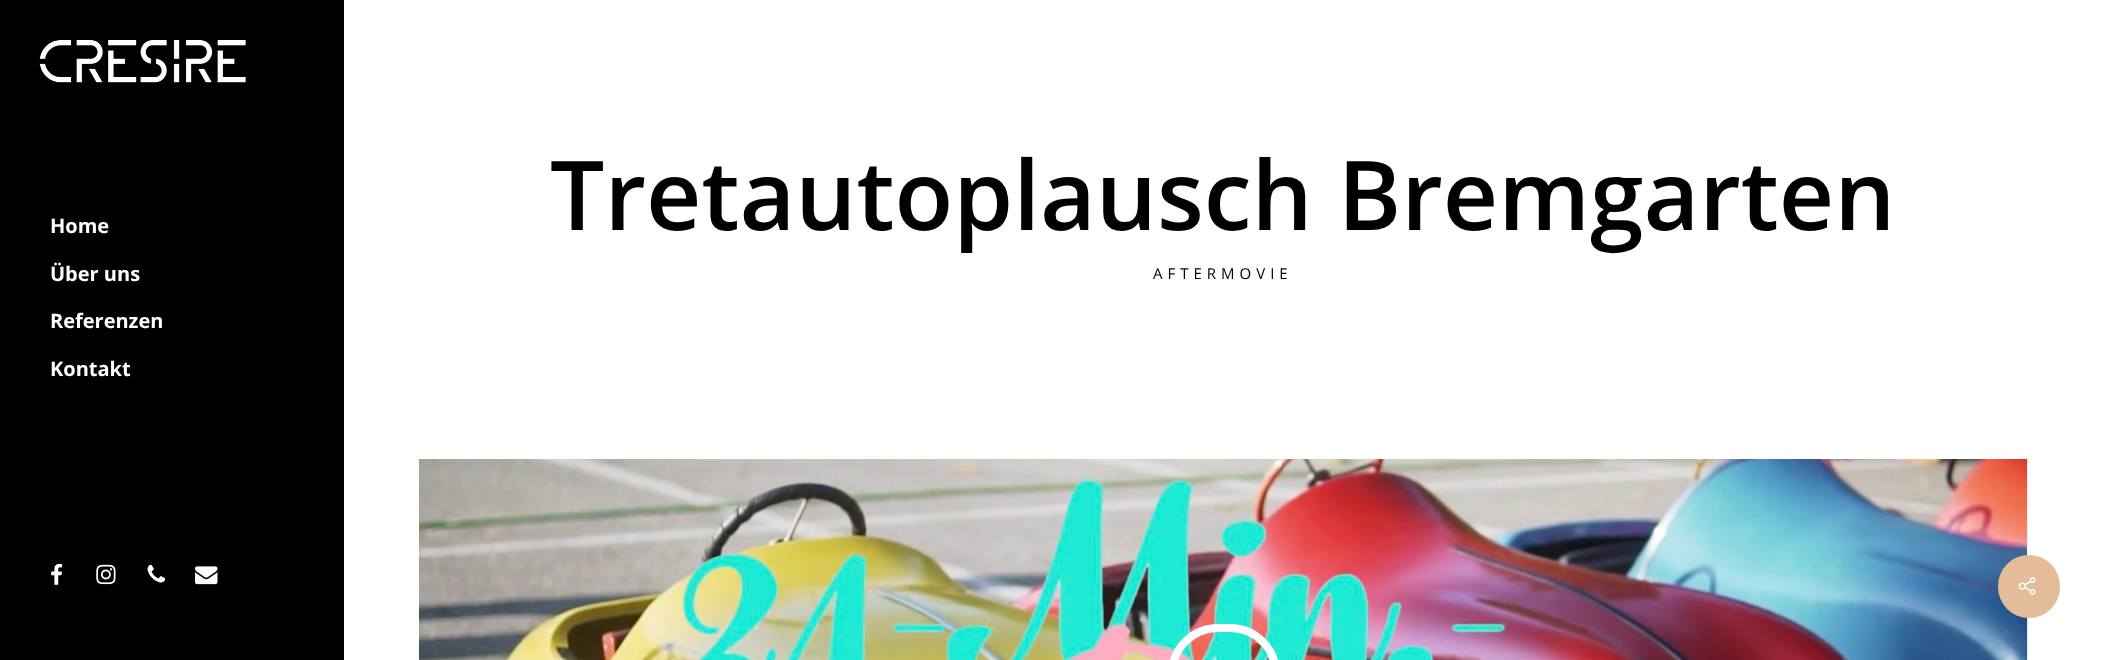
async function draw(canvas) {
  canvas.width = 2102;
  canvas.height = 660;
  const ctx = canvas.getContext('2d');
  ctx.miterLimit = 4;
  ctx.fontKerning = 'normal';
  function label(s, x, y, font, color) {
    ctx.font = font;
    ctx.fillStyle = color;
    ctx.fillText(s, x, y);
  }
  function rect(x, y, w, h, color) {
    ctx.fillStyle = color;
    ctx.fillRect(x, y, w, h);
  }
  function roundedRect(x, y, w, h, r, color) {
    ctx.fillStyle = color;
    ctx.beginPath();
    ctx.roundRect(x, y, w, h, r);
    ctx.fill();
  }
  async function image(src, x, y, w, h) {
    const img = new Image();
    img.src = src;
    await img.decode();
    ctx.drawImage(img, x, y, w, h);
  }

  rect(0, 0, 2102, 660, '#fff');
  rect(0, 0, 344, 660, '#000');
  await image('assets/img1.png', 39, 40, 207, 43);
  label('Home', 50, 233, 'bold 20px Open Sans', '#fff');
  label('Über uns', 50, 281, 'bold 20px Open Sans', '#fff');
  label('Referenzen', 50, 328, 'bold 20px Open Sans', '#fff');
  label('Kontakt', 50, 376, 'bold 20px Open Sans', '#fff');
  await image('assets/img2.png', 51, 563, 12, 22);
  await image('assets/img3.png', 96, 564, 20, 21);
  await image('assets/img4.png', 147, 564, 19, 19);
  await image('assets/img5.png', 195, 566, 23, 19);
  label('Tretautoplausch Bremgarten', 550, 230, '600 96.25px Open Sans', '#000');
  ctx.letterSpacing = '5px';
  label('AFTERMOVIE', 1153, 279, '15px Open Sans', '#000');
  await image('assets/img6.png', 419, 459, 1609, 201);
  ctx.beginPath();
  ctx.roundRect(1172, 628, 104, 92, 52);
  ctx.strokeStyle = '#fff';
  ctx.lineWidth = 8;
  ctx.stroke();
  roundedRect(1998, 555, 62, 63, 31, '#e3bc9a');
  await image('assets/img7.png', 2018, 577, 18, 18);
}

draw(document.querySelector('canvas'));
